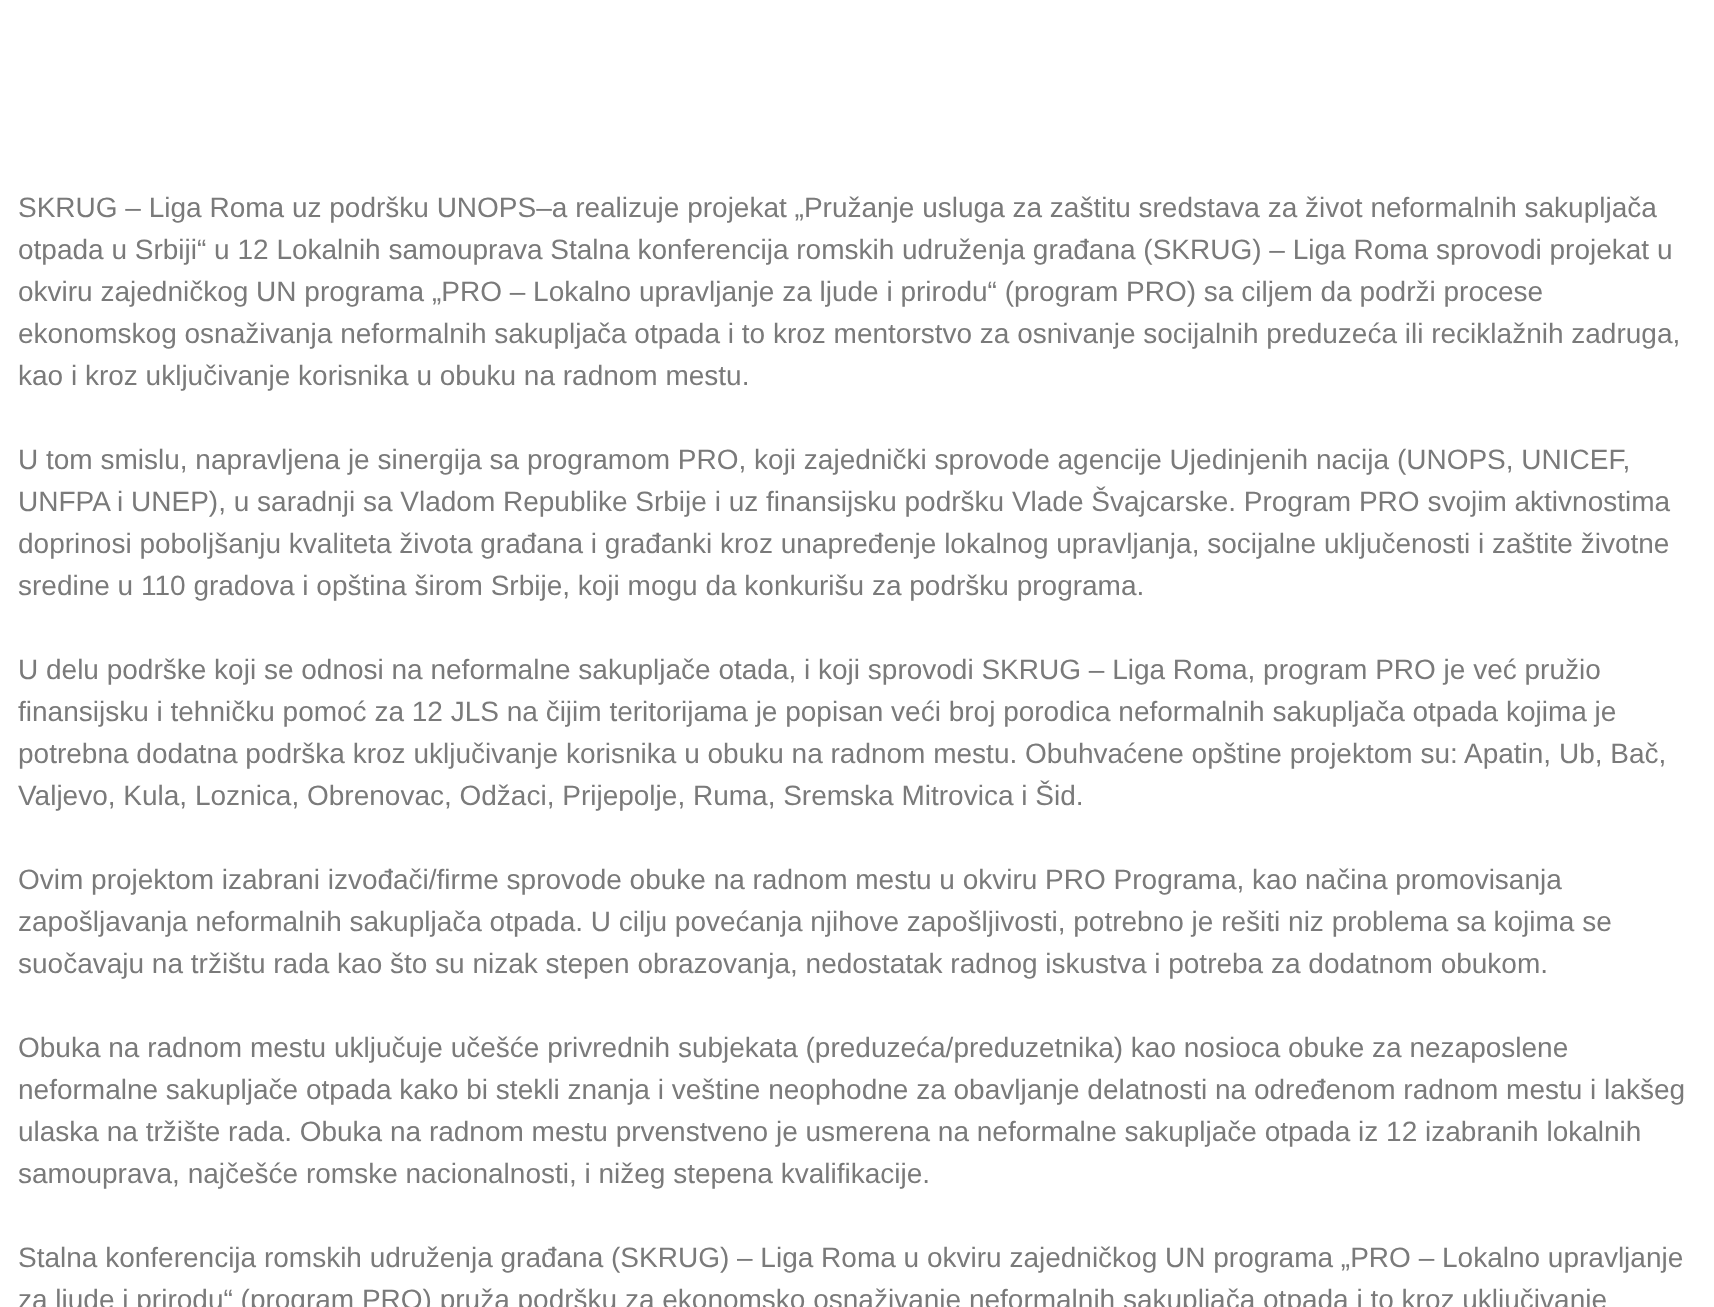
async function draw(canvas) {
  canvas.width = 1714;
  canvas.height = 1307;
  const ctx = canvas.getContext('2d');
  ctx.miterLimit = 4;
  ctx.fontKerning = 'normal';
  function label(s, x, y, font, color) {
    ctx.font = font;
    ctx.fillStyle = color;
    ctx.fillText(s, x, y);
  }
  function rect(x, y, w, h, color) {
    ctx.fillStyle = color;
    ctx.fillRect(x, y, w, h);
  }

  rect(0, 0, 1714, 1307, '#fff');
  label('SKRUG – Liga Roma uz podršku UNOPS–a realizuje projekat „Pružanje usluga za zaštitu sredstava za život neformalnih sakupljača', 18, 217, '28px Liberation Sans', '#7a7a7a');
  label('otpada u Srbiji“ u 12 Lokalnih samouprava Stalna konferencija romskih udruženja građana (SKRUG) – Liga Roma sprovodi projekat u', 18, 259, '28px Liberation Sans', '#7a7a7a');
  label('okviru zajedničkog UN programa „PRO – Lokalno upravljanje za ljude i prirodu“ (program PRO) sa ciljem da podrži procese', 18, 301, '28px Liberation Sans', '#7a7a7a');
  label('ekonomskog osnaživanja neformalnih sakupljača otpada i to kroz mentorstvo za osnivanje socijalnih preduzeća ili reciklažnih zadruga,', 18, 343, '28px Liberation Sans', '#7a7a7a');
  label('kao i kroz uključivanje korisnika u obuku na radnom mestu.', 18, 385, '28px Liberation Sans', '#7a7a7a');
  label('U tom smislu, napravljena je sinergija sa programom PRO, koji zajednički sprovode agencije Ujedinjenih nacija (UNOPS, UNICEF,', 18, 469, '28px Liberation Sans', '#7a7a7a');
  label('UNFPA i UNEP), u saradnji sa Vladom Republike Srbije i uz finansijsku podršku Vlade Švajcarske. Program PRO svojim aktivnostima', 18, 511, '28px Liberation Sans', '#7a7a7a');
  label('doprinosi poboljšanju kvaliteta života građana i građanki kroz unapređenje lokalnog upravljanja, socijalne uključenosti i zaštite životne', 18, 553, '28px Liberation Sans', '#7a7a7a');
  label('sredine u 110 gradova i opština širom Srbije, koji mogu da konkurišu za podršku programa.', 18, 595, '28px Liberation Sans', '#7a7a7a');
  label('U delu podrške koji se odnosi na neformalne sakupljače otada, i koji sprovodi SKRUG – Liga Roma, program PRO je već pružio', 18, 679, '28px Liberation Sans', '#7a7a7a');
  label('finansijsku i tehničku pomoć za 12 JLS na čijim teritorijama je popisan veći broj porodica neformalnih sakupljača otpada kojima je', 18, 721, '28px Liberation Sans', '#7a7a7a');
  label('potrebna dodatna podrška kroz uključivanje korisnika u obuku na radnom mestu. Obuhvaćene opštine projektom su: Apatin, Ub, Bač,', 18, 763, '28px Liberation Sans', '#7a7a7a');
  label('Valjevo, Kula, Loznica, Obrenovac, Odžaci, Prijepolje, Ruma, Sremska Mitrovica i Šid.', 18, 805, '28px Liberation Sans', '#7a7a7a');
  label('Ovim projektom izabrani izvođači/firme sprovode obuke na radnom mestu u okviru PRO Programa, kao načina promovisanja', 18, 889, '28px Liberation Sans', '#7a7a7a');
  label('zapošljavanja neformalnih sakupljača otpada. U cilju povećanja njihove zapošljivosti, potrebno je rešiti niz problema sa kojima se', 18, 931, '28px Liberation Sans', '#7a7a7a');
  label('suočavaju na tržištu rada kao što su nizak stepen obrazovanja, nedostatak radnog iskustva i potreba za dodatnom obukom.', 18, 973, '28px Liberation Sans', '#7a7a7a');
  label('Obuka na radnom mestu uključuje učešće privrednih subjekata (preduzeća/preduzetnika) kao nosioca obuke za nezaposlene', 18, 1057, '28px Liberation Sans', '#7a7a7a');
  label('neformalne sakupljače otpada kako bi stekli znanja i veštine neophodne za obavljanje delatnosti na određenom radnom mestu i lakšeg', 18, 1099, '28px Liberation Sans', '#7a7a7a');
  label('ulaska na tržište rada. Obuka na radnom mestu prvenstveno je usmerena na neformalne sakupljače otpada iz 12 izabranih lokalnih', 18, 1141, '28px Liberation Sans', '#7a7a7a');
  label('samouprava, najčešće romske nacionalnosti, i nižeg stepena kvalifikacije.', 18, 1183, '28px Liberation Sans', '#7a7a7a');
  label('Stalna konferencija romskih udruženja građana (SKRUG) – Liga Roma u okviru zajedničkog UN programa „PRO – Lokalno upravljanje', 18, 1267, '28px Liberation Sans', '#7a7a7a');
  label('za ljude i prirodu“ (program PRO) pruža podršku za ekonomsko osnaživanje neformalnih sakupljača otpada i to kroz uključivanje', 18, 1309, '28px Liberation Sans', '#7a7a7a');
}

draw(document.querySelector('canvas'));
